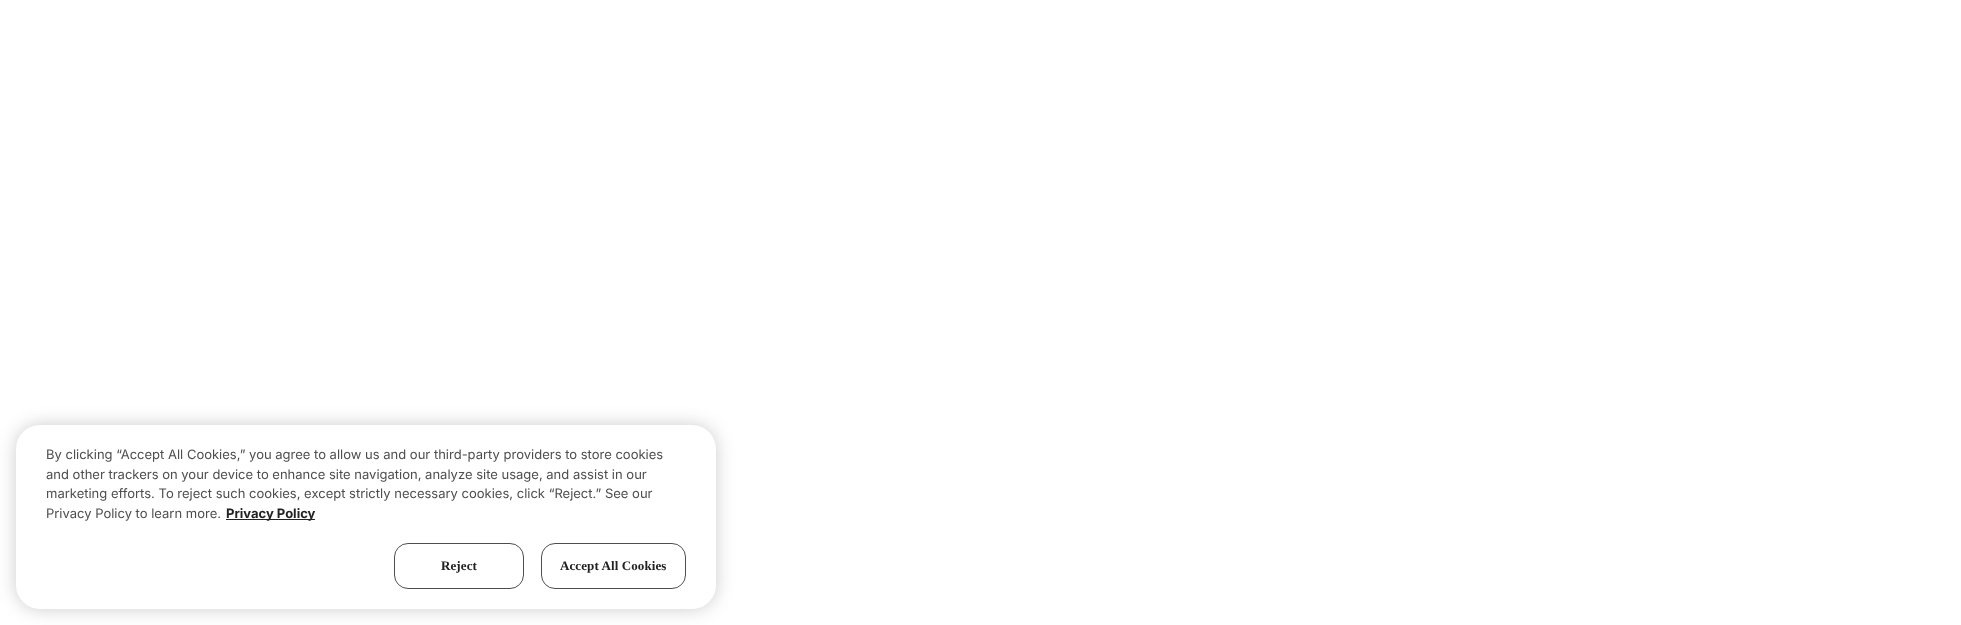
async function draw(canvas) {
  canvas.width = 1961;
  canvas.height = 625;
  const ctx = canvas.getContext('2d');
  ctx.miterLimit = 4;
  ctx.fontKerning = 'normal';
  function label(s, x, y, font, color) {
    ctx.font = font;
    ctx.fillStyle = color;
    ctx.fillText(s, x, y);
  }
  function rect(x, y, w, h, color) {
    ctx.fillStyle = color;
    ctx.fillRect(x, y, w, h);
  }
  function roundedRect(x, y, w, h, r, color) {
    ctx.fillStyle = color;
    ctx.beginPath();
    ctx.roundRect(x, y, w, h, r);
    ctx.fill();
  }

  rect(0, 0, 1961, 625, '#fff');
  ctx.fillStyle = '#00000033';
  ctx.filter = 'blur(9px)';
  ctx.beginPath();
  ctx.roundRect(16, 425, 700, 184, 24);
  ctx.fill();
  ctx.filter = 'none';
  roundedRect(16, 425, 700, 184, 24, '#fff');
  label('By clicking “Accept All Cookies,” you agree to allow us and our third-party providers to store cookies', 46, 459, '13px Inter', '#4e4e4e');
  label('and other trackers on your device to enhance site navigation, analyze site usage, and assist in our', 46, 479, '13px Inter', '#4e4e4e');
  label('marketing efforts. To reject such cookies, except strictly necessary cookies, click “Reject.” See our', 46, 498, '13px Inter', '#4e4e4e');
  label('Privacy Policy to learn more.', 46, 518, '13px Inter', '#4e4e4e');
  rect(226, 519, 89, 1, '#222');
  label('Privacy Policy', 226, 518, 'bold 13px Inter', '#222');
  ctx.beginPath();
  ctx.roundRect(394.5, 543.5, 129, 45, 13.5);
  ctx.strokeStyle = '#4e4e4e';
  ctx.stroke();
  ctx.letterSpacing = '0.1px';
  label('Reject', 441, 570, 'bold 13px Liberation Serif', '#222');
  ctx.beginPath();
  ctx.roundRect(541.5, 543.5, 144, 45, 13.5);
  ctx.stroke();
  label('Accept All Cookies', 560, 570, 'bold 13px Liberation Serif', '#222');
}

draw(document.querySelector('canvas'));
